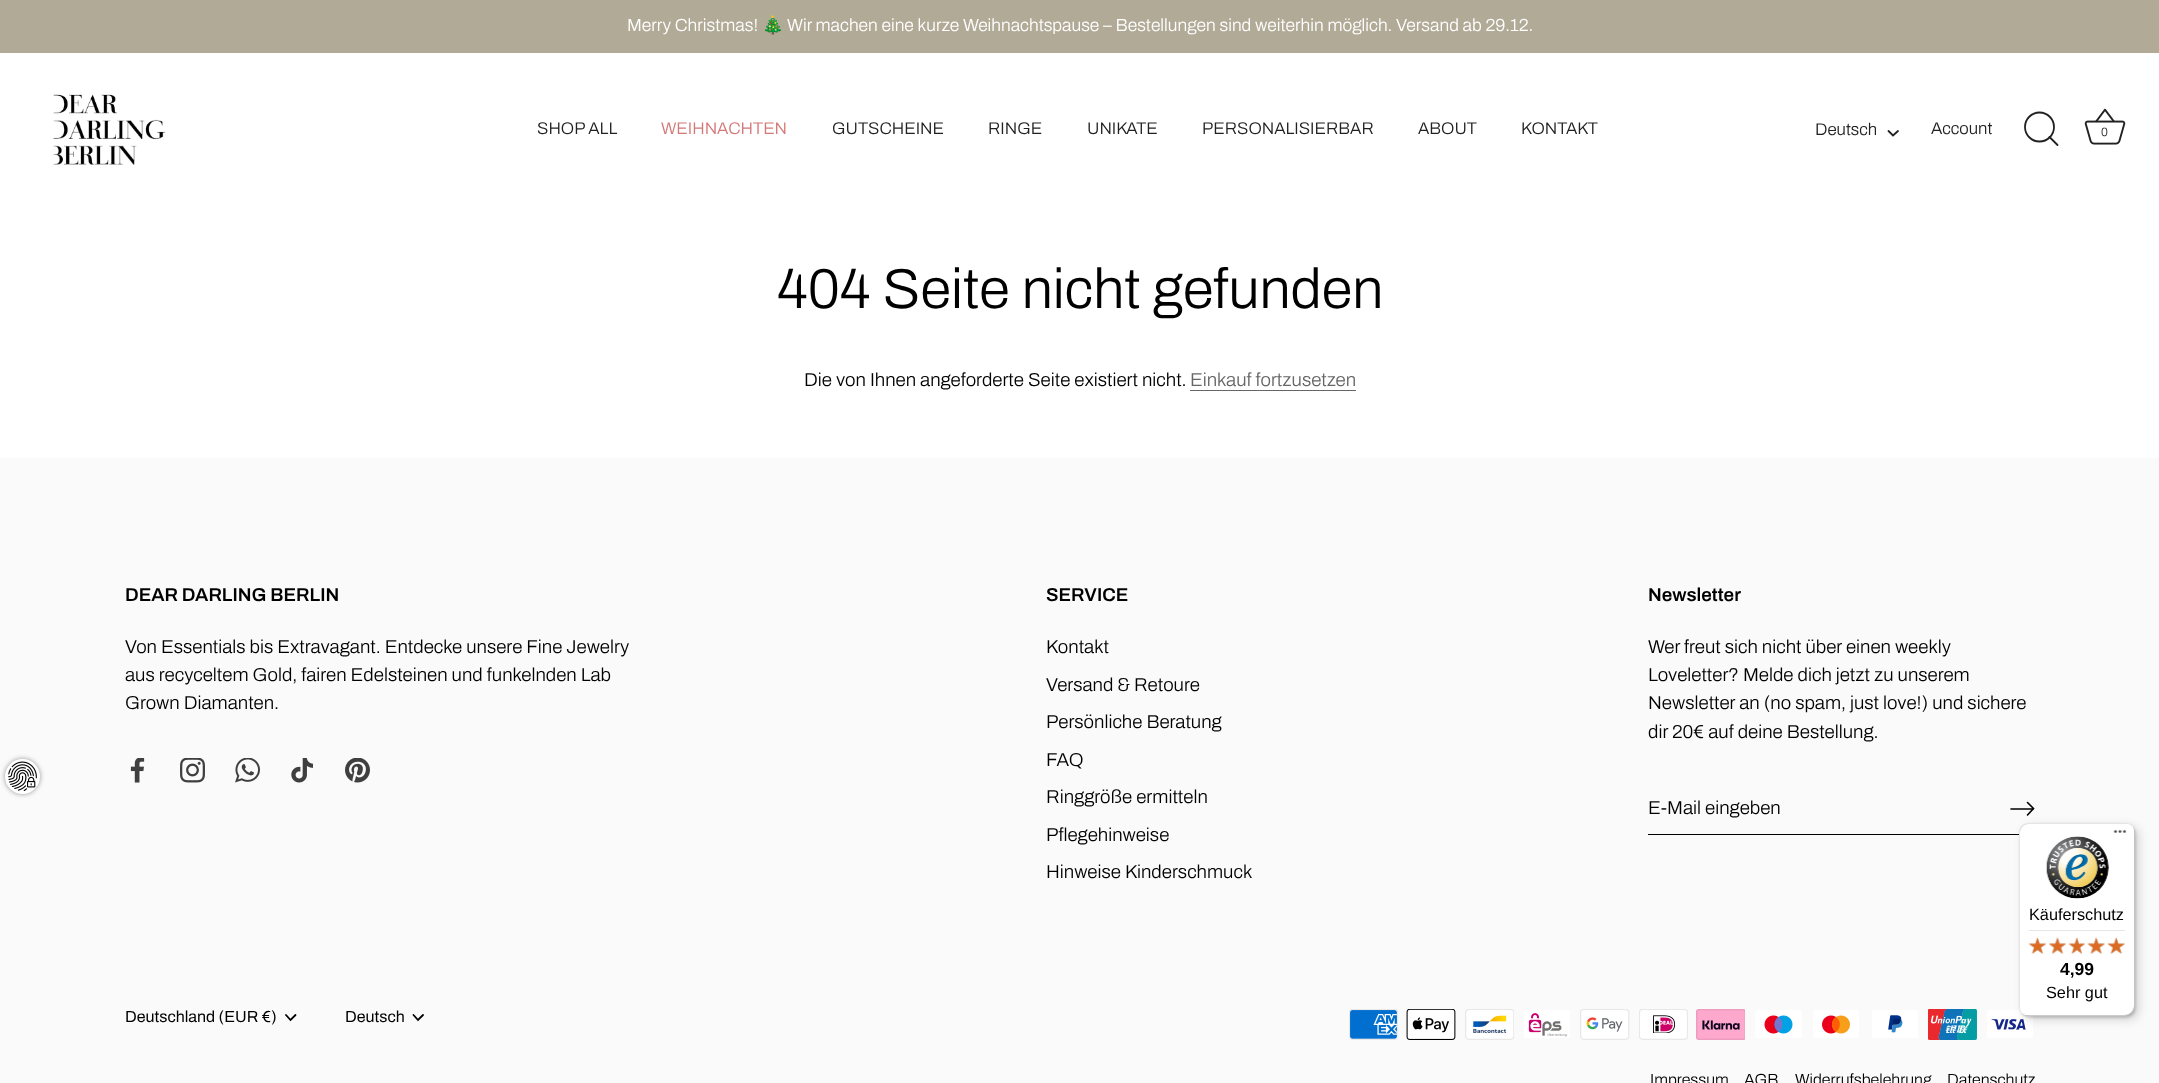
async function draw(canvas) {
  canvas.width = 2159;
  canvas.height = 1083;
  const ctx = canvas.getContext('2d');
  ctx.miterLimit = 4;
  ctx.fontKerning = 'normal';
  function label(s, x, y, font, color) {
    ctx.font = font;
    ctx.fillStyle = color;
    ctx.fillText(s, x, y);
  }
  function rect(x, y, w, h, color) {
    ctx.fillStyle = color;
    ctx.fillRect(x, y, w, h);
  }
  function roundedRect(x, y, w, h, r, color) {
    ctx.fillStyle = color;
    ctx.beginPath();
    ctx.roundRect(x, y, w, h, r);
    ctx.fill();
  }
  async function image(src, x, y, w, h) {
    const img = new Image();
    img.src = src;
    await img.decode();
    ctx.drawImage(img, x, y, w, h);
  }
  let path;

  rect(0, 0, 2159, 1083, '#fff');
  rect(0, 0, 2159, 53, '#b1aa97');
  label('Merry Christmas!', 627, 31, '300 17.5px Archivo', '#fff');
  label('🎄', 762, 31, '17.5px Noto Color Emoji', '#fff');
  label('Wir machen eine kurze Weihnachtspause – Bestellungen sind weiterhin möglich. Versand ab 29.12.', 787, 31, '300 17.5px Archivo', '#fff');
  await image('assets/img1.png', 53, 94, 113, 71);
  label('SHOP ALL', 537, 134, '300 16.9px Archivo', '#212121');
  label('WEIHNACHTEN', 661, 134, '300 16.9px Archivo', '#d47777');
  label('GUTSCHEINE', 832, 134, '300 16.9px Archivo', '#212121');
  label('RINGE', 988, 134, '300 16.9px Archivo', '#212121');
  label('UNIKATE', 1087, 134, '300 16.9px Archivo', '#212121');
  label('PERSONALISIERBAR', 1202, 134, '300 16.9px Archivo', '#212121');
  label('ABOUT', 1418, 134, '300 16.9px Archivo', '#212121');
  label('KONTAKT', 1521, 134, '300 16.9px Archivo', '#212121');
  label('Deutsch', 1815, 135, '300 16.9px Archivo', '#212121');
  path = new Path2D('M1888.5 131L1893 135.5L1898 131');
  ctx.strokeStyle = '#212121';
  ctx.lineWidth = 1.8;
  ctx.lineCap = 'round';
  ctx.stroke(path);
  label('Account', 1931, 134, '300 16.9px Archivo', '#212121');
  ctx.beginPath();
  ctx.arc(2039.5, 127, 14.5, 0, 2 * Math.PI);
  ctx.stroke();
  path = new Path2D('M2057.5 145L2049.5 137');
  ctx.lineJoin = 'round';
  ctx.stroke(path);
  await image('assets/img2.png', 2084, 108, 42, 37);
  label('0', 2101, 136, '300 12px Archivo', '#212121');
  label('404 Seite nicht gefunden', 777, 308, '300 56.25px Archivo', '#000');
  label('Die von Ihnen angeforderte Seite existiert nicht.', 804, 386, '300 18.75px Archivo', '#000');
  label('Einkauf fortzusetzen', 1190, 386, '300 18.75px Archivo', '#666');
  rect(1190, 390, 166, 1, '#666');
  rect(0, 458, 2159, 625, '#fafafa');
  ctx.fillStyle = '#00000066';
  ctx.filter = 'blur(2.5px)';
  ctx.beginPath();
  ctx.roundRect(5, 759, 35, 35, 17.5);
  ctx.fill();
  ctx.filter = 'none';
  ctx.fillStyle = '#fff';
  ctx.beginPath();
  ctx.arc(22.5, 776.5, 17.5, 0, 2 * Math.PI);
  ctx.fill();
  await image('assets/img3.png', 8, 761, 29, 30);
  label('DEAR DARLING BERLIN', 125, 601, '600 18.75px Archivo', '#000');
  label('Von Essentials bis Extravagant. Entdecke unsere Fine Jewelry', 125, 653, '300 18.75px Archivo', '#000');
  label('aus recyceltem Gold, fairen Edelsteinen und funkelnden Lab', 125, 681, '300 18.75px Archivo', '#000');
  label('Grown Diamanten.', 125, 709, '300 18.75px Archivo', '#000');
  await image('assets/img4.png', 130, 758, 15, 25);
  await image('assets/img5.png', 180, 758, 25, 25);
  await image('assets/img6.png', 235, 758, 25, 25);
  await image('assets/img7.png', 291, 758, 22, 25);
  await image('assets/img8.png', 345, 758, 25, 25);
  label('SERVICE', 1046, 601, '600 18.75px Archivo', '#000');
  label('Kontakt', 1046, 653, '300 18.75px Archivo', '#000');
  label('Versand & Retoure', 1046, 691, '300 18.75px Archivo', '#000');
  label('Persönliche Beratung', 1046, 728, '300 18.75px Archivo', '#000');
  label('FAQ', 1046, 766, '300 18.75px Archivo', '#000');
  label('Ringgröße ermitteln', 1046, 803, '300 18.75px Archivo', '#000');
  label('Pflegehinweise', 1046, 841, '300 18.75px Archivo', '#000');
  label('Hinweise Kinderschmuck', 1046, 878, '300 18.75px Archivo', '#000');
  label('Newsletter', 1648, 601, '600 18.75px Archivo', '#000');
  label('Wer freut sich nicht über einen weekly', 1648, 653, '300 18.75px Archivo', '#000');
  label('Loveletter? Melde dich jetzt zu unserem', 1648, 681, '300 18.75px Archivo', '#000');
  label('Newsletter an (no spam, just love!) und sichere', 1648, 709, '300 18.75px Archivo', '#000');
  label('dir 20€ auf deine Bestellung.', 1648, 738, '300 18.75px Archivo', '#000');
  rect(1648, 834, 371, 1, '#000');
  label('E-Mail eingeben', 1648, 814, '300 18.75px Archivo', '#000');
  path = new Path2D('M2027.5 815L2033.5 808.5L2027.5 802.5');
  ctx.strokeStyle = '#000';
  ctx.lineWidth = 1.6;
  ctx.lineJoin = 'miter';
  ctx.stroke(path);
  path = new Path2D('M2033 809H2011');
  ctx.lineJoin = 'round';
  ctx.stroke(path);
  label('Deutschland (EUR €)', 125, 1022, '16px Archivo', '#000');
  path = new Path2D('M286 1015L290.5 1020L295.5 1015');
  ctx.lineWidth = 1.8;
  ctx.lineJoin = 'miter';
  ctx.stroke(path);
  label('Deutsch', 345, 1022, '16px Archivo', '#000');
  path = new Path2D('M413.5 1015L418 1020L423 1015');
  ctx.stroke(path);
  await image('assets/img9.png', 1349, 1009, 49, 31);
  await image('assets/img10.png', 1406, 1009, 50, 31);
  await image('assets/img11.png', 1465, 1009, 49, 31);
  await image('assets/img12.png', 1524, 1010, 46, 28);
  await image('assets/img13.png', 1580, 1009, 50, 31);
  await image('assets/img14.png', 1639, 1009, 49, 31);
  await image('assets/img15.png', 1696, 1009, 49, 31);
  await image('assets/img16.png', 1755, 1010, 47, 28);
  await image('assets/img17.png', 1813, 1010, 46, 28);
  await image('assets/img18.png', 1872, 1010, 46, 28);
  await image('assets/img19.png', 1928, 1009, 49, 31);
  await image('assets/img20.png', 1987, 1010, 46, 28);
  label('Impressum', 1650, 1085, '300 16px Archivo', '#000');
  label('AGB', 1744, 1085, '300 16px Archivo', '#000');
  label('Widerrufsbelehrung', 1795, 1085, '300 16px Archivo', '#000');
  label('Datenschutz', 1947, 1085, '300 16px Archivo', '#000');
  ctx.fillStyle = '#00000026';
  ctx.filter = 'blur(5px)';
  ctx.beginPath();
  ctx.roundRect(2023, 826, 116, 194, 10);
  ctx.fill();
  ctx.filter = 'none';
  ctx.filter = 'blur(1px)';
  ctx.beginPath();
  ctx.roundRect(2020, 824, 116, 194, 10);
  ctx.fill();
  ctx.filter = 'none';
  roundedRect(2019, 823, 116, 193, 10, '#fff');
  ctx.fillStyle = '#0000001a';
  path = new Path2D('M2030 824H2126C2128 824 2130 824 2131 825C2130 824 2127 823 2125 823H2029C2023 823 2019 827 2019 833V1006C2019 1008 2020 1010 2021 1012L2020 1008V834C2020 828 2024 824 2030 824Z');
  ctx.fill(path);
  ctx.fillStyle = '#00000033';
  path = new Path2D('M2023 1014C2024 1015 2027 1016 2029 1016H2125C2131 1016 2135 1012 2135 1006V833C2135 831 2134 829 2133 827C2134 828 2134 830 2134 831V1005C2134 1011 2129 1015 2124 1015H2028C2026 1015 2024 1015 2023 1014Z');
  ctx.fill(path);
  ctx.fillStyle = '#32323233';
  path = new Path2D('M2124 1016H2125C2131 1016 2135 1012 2135 1006V833C2135 831 2134 828 2133 827C2134 828 2134 830 2134 832V1006C2134 1011 2130 1016 2124 1016Z');
  ctx.fill(path);
  ctx.fillStyle = '#ffffff4d';
  path = new Path2D('M2124 1016H2125C2131 1016 2135 1012 2135 1006V833C2135 831 2134 828 2133 827C2134 828 2134 830 2134 832V1006C2134 1011 2130 1016 2124 1016Z');
  ctx.fill(path);
  await image('assets/img21.png', 2113, 830, 14, 3);
  await image('assets/img22.png', 2046, 836, 63, 63);
  label('Käuferschutz', 2029, 920, '16.25px Liberation Sans', '#000');
  rect(2029, 930, 96, 1, '#e5e5e5');
  await image('assets/img28.png', 2029, 938, 17, 16);
  await image('assets/img23.png', 2028, 937, 18, 17);
  await image('assets/img29.png', 2049, 938, 17, 16);
  await image('assets/img24.png', 2048, 937, 19, 17);
  await image('assets/img30.png', 2069, 938, 16, 16);
  await image('assets/img25.png', 2068, 937, 17, 17);
  await image('assets/img31.png', 2087, 937, 18, 17);
  await image('assets/img26.png', 2087, 937, 18, 17);
  await image('assets/img32.png', 2107, 938, 18, 16);
  await image('assets/img27.png', 2107, 937, 18, 17);
  label('4,99', 2060, 975, 'bold 17.5px Liberation Sans', '#000');
  label('Sehr gut', 2046, 998, '16.25px Liberation Sans', '#000');
}

draw(document.querySelector('canvas'));
